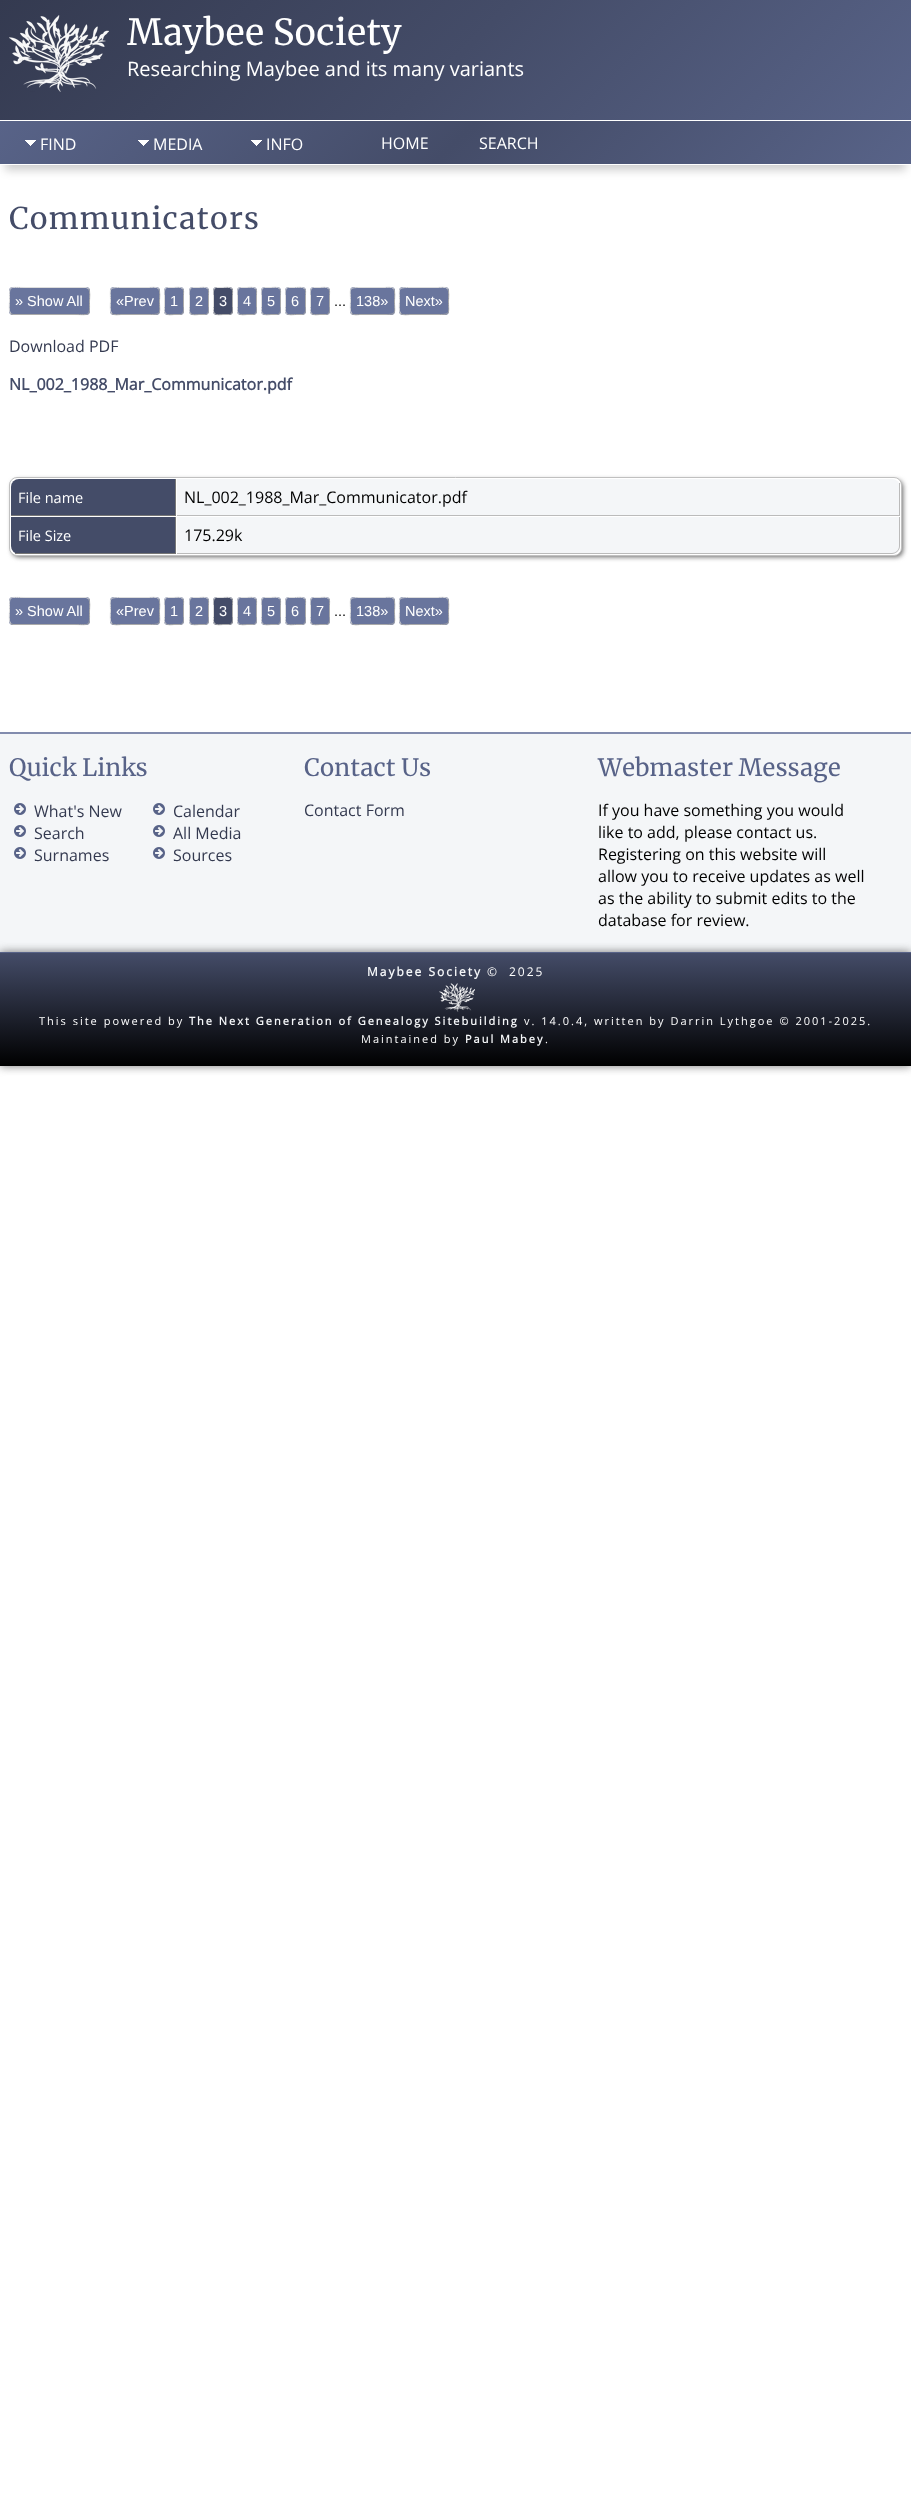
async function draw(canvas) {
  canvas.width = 911;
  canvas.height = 2496;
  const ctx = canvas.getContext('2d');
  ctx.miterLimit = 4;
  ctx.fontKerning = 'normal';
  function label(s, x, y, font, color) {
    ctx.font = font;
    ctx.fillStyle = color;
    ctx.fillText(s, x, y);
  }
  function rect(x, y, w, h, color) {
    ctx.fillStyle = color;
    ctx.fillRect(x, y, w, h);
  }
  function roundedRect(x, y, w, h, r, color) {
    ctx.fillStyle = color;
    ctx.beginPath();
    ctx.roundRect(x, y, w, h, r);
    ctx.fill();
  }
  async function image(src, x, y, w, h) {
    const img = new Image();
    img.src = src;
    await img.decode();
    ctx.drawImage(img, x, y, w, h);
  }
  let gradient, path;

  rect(0, 0, 911, 2496, '#fff');
  gradient = ctx.createLinearGradient(198, -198, 713, 318);
  gradient.addColorStop(0, '#343a50');
  gradient.addColorStop(0.5, '#444c68');
  gradient.addColorStop(1, '#586388');
  ctx.fillStyle = gradient;
  ctx.fillRect(0, 0, 911, 120);
  await image('assets/img1.png', 9, 15, 100, 77);
  label('Maybee Society', 127, 45, '36px Merriweather', '#fff');
  label('Researching Maybee and its many variants', 127, 76, '20px Open Sans', '#fff');
  ctx.fillStyle = '#00000033';
  ctx.filter = 'blur(5px)';
  ctx.beginPath();
  ctx.rect(5, 136, 901, 34);
  ctx.fill();
  ctx.filter = 'none';
  gradient = ctx.createLinearGradient(217, -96, 694, 381);
  gradient.addColorStop(0, '#586388');
  gradient.addColorStop(0.5, '#444c68');
  gradient.addColorStop(1, '#586388');
  ctx.fillStyle = gradient;
  ctx.fillRect(0, 121, 911, 43);
  rect(0, 164, 911, 1, '#fff');
  await image('assets/img2.png', 25, 140, 11, 6);
  label('FIND', 40, 150, '16px Open Sans', '#fff');
  await image('assets/img3.png', 138, 140, 11, 6);
  label('MEDIA', 153, 150, '16px Open Sans', '#fff');
  await image('assets/img4.png', 251, 140, 11, 6);
  label('INFO', 266, 150, '16px Open Sans', '#fff');
  label('HOME', 381, 149, '16px Open Sans', '#fff');
  label('SEARCH', 479, 149, '16px Open Sans', '#fff');
  ctx.letterSpacing = '1px';
  label('Communicators', 9, 229, '30px Merriweather', '#444c68');
  roundedRect(9, 287, 81, 28, 4, '#69759d');
  path = new Path2D('M88.5 288.5C90.5 291 89.5 298.5 89.5 301C89.5 317 91 314.5 74 314.5H13L10.5 313.5');
  ctx.strokeStyle = '#aaa';
  ctx.stroke(path);
  path = new Path2D('M10.5 313.5C8.5 311 9.5 303.5 9.5 301C9.5 285 8 287.5 25 287.5H86L88.5 288.5');
  ctx.strokeStyle = '#ddd';
  ctx.stroke(path);
  ctx.letterSpacing = '0px';
  label('» Show All', 15, 306, '14.5px Liberation Sans', '#fff');
  roundedRect(110, 287, 50, 28, 4, '#69759d');
  path = new Path2D('M158.5 288.5C160.5 291 159.5 298.5 159.5 301C159.5 314 162 314.5 149 314.5H121C119.5 314.5 113.5 315.5 111.5 313.5');
  ctx.strokeStyle = '#aaa';
  ctx.stroke(path);
  path = new Path2D('M111.5 313.5C109.5 311 110.5 303.5 110.5 301C110.5 288 108 287.5 121 287.5H149C150.5 287.5 156.5 286.5 158.5 288.5');
  ctx.strokeStyle = '#ddd';
  ctx.stroke(path);
  label('«Prev', 116, 306, '14.5px Liberation Sans', '#fff');
  roundedRect(164, 287, 20, 28, 4, '#69759d');
  path = new Path2D('M182.5 288.5C184 290 183.5 292.5 183.5 294.5V307.5C183.5 310 184 314 180.5 314.5H174C172 314.5 167.5 315.5 165.5 313.5');
  ctx.strokeStyle = '#aaa';
  ctx.stroke(path);
  path = new Path2D('M165.5 313.5C164 312 164.5 309.5 164.5 307.5V294.5C164.5 292 164 288 167.5 287.5H174C176 287.5 180.5 286.5 182.5 288.5');
  ctx.strokeStyle = '#ddd';
  ctx.stroke(path);
  label('1', 170, 306, '14.5px Liberation Sans', '#fff');
  roundedRect(189, 287, 20, 28, 4, '#69759d');
  path = new Path2D('M207.5 288.5C209 290 208.5 292.5 208.5 294.5V307.5C208.5 310 209 314 205.5 314.5H199C197 314.5 192.5 315.5 190.5 313.5');
  ctx.strokeStyle = '#aaa';
  ctx.stroke(path);
  path = new Path2D('M190.5 313.5C189 312 189.5 309.5 189.5 307.5V294.5C189.5 292 189 288 192.5 287.5H199C201 287.5 205.5 286.5 207.5 288.5');
  ctx.strokeStyle = '#ddd';
  ctx.stroke(path);
  label('2', 195, 306, '14.5px Liberation Sans', '#fff');
  roundedRect(213, 287, 20, 28, 4, '#444c68');
  path = new Path2D('M231.5 288.5C233 290 232.5 292.5 232.5 294.5V307.5C232.5 310 233 314 229.5 314.5H223C221 314.5 216.5 315.5 214.5 313.5');
  ctx.strokeStyle = '#aaa';
  ctx.stroke(path);
  path = new Path2D('M214.5 313.5C213 312 213.5 309.5 213.5 307.5V294.5C213.5 292 213 288 216.5 287.5H223C225 287.5 229.5 286.5 231.5 288.5');
  ctx.strokeStyle = '#ddd';
  ctx.stroke(path);
  label('3', 219, 306, '14.5px Liberation Sans', '#fff');
  roundedRect(237, 287, 20, 28, 4, '#69759d');
  path = new Path2D('M255.5 288.5C257 290 256.5 292.5 256.5 294.5V307.5C256.5 310 257 314 253.5 314.5H247C245 314.5 240.5 315.5 238.5 313.5');
  ctx.strokeStyle = '#aaa';
  ctx.stroke(path);
  path = new Path2D('M238.5 313.5C237 312 237.5 309.5 237.5 307.5V294.5C237.5 292 237 288 240.5 287.5H247C249 287.5 253.5 286.5 255.5 288.5');
  ctx.strokeStyle = '#ddd';
  ctx.stroke(path);
  label('4', 243, 306, '14.5px Liberation Sans', '#fff');
  roundedRect(261, 287, 20, 28, 4, '#69759d');
  path = new Path2D('M279.5 288.5C281 290 280.5 292.5 280.5 294.5V307.5C280.5 310 281 314 277.5 314.5H271C269 314.5 264.5 315.5 262.5 313.5');
  ctx.strokeStyle = '#aaa';
  ctx.stroke(path);
  path = new Path2D('M262.5 313.5C261 312 261.5 309.5 261.5 307.5V294.5C261.5 292 261 288 264.5 287.5H271C273 287.5 277.5 286.5 279.5 288.5');
  ctx.strokeStyle = '#ddd';
  ctx.stroke(path);
  label('5', 267, 306, '14.5px Liberation Sans', '#fff');
  roundedRect(285, 287, 21, 28, 4, '#69759d');
  path = new Path2D('M304.5 288.5C306 290 305.5 292.5 305.5 294.5V307.5C305.5 310 306 314 302.5 314.5H295.5C293 314.5 288.5 315.5 286.5 313.5');
  ctx.strokeStyle = '#aaa';
  ctx.stroke(path);
  path = new Path2D('M286.5 313.5C285 312 285.5 309.5 285.5 307.5V294.5C285.5 292 285 288 288.5 287.5H295.5C298 287.5 302.5 286.5 304.5 288.5');
  ctx.strokeStyle = '#ddd';
  ctx.stroke(path);
  label('6', 291, 306, '14.5px Liberation Sans', '#fff');
  roundedRect(310, 287, 20, 28, 4, '#69759d');
  path = new Path2D('M328.5 288.5C330 290 329.5 292.5 329.5 294.5V307.5C329.5 310 330 314 326.5 314.5H320C318 314.5 313.5 315.5 311.5 313.5');
  ctx.strokeStyle = '#aaa';
  ctx.stroke(path);
  path = new Path2D('M311.5 313.5C310 312 310.5 309.5 310.5 307.5V294.5C310.5 292 310 288 313.5 287.5H320C322 287.5 326.5 286.5 328.5 288.5');
  ctx.strokeStyle = '#ddd';
  ctx.stroke(path);
  label('7', 316, 306, '14.5px Liberation Sans', '#fff');
  label('...', 334, 306, '14.5px Liberation Sans', '#000');
  roundedRect(350, 287, 45, 28, 4, '#69759d');
  path = new Path2D('M393.5 288.5C395.5 291 394.5 298.5 394.5 301C394.5 313.5 397 314.5 385 314.5H360C358.5 314.5 353.5 315.5 351.5 313.5');
  ctx.strokeStyle = '#aaa';
  ctx.stroke(path);
  path = new Path2D('M351.5 313.5C349.5 311 350.5 303.5 350.5 301C350.5 288.5 348 287.5 360 287.5H385C386.5 287.5 391.5 286.5 393.5 288.5');
  ctx.strokeStyle = '#ddd';
  ctx.stroke(path);
  label('138»', 356, 306, '14.5px Liberation Sans', '#fff');
  roundedRect(399, 287, 50, 28, 4, '#69759d');
  path = new Path2D('M447.5 288.5C449.5 291 448.5 298.5 448.5 301C448.5 314 451 314.5 438 314.5H410C408.5 314.5 402.5 315.5 400.5 313.5');
  ctx.strokeStyle = '#aaa';
  ctx.stroke(path);
  path = new Path2D('M400.5 313.5C398.5 311 399.5 303.5 399.5 301C399.5 288 397 287.5 410 287.5H438C439.5 287.5 445.5 286.5 447.5 288.5');
  ctx.strokeStyle = '#ddd';
  ctx.stroke(path);
  label('Next»', 405, 306, '14.5px Liberation Sans', '#fff');
  label('Download PDF', 9, 352, '16px Open Sans', '#343a50');
  label('NL_002_1988_Mar_Communicator.pdf', 9, 390, 'bold 16px Open Sans', '#444c68');
  ctx.fillStyle = '#666';
  ctx.filter = 'blur(2.5px)';
  ctx.beginPath();
  ctx.roundRect(12, 480, 891, 77, 7);
  ctx.fill();
  ctx.filter = 'none';
  ctx.fillStyle = '#fff';
  ctx.beginPath();
  ctx.roundRect(9.5, 477.5, 892, 78, 7.5);
  ctx.fill();
  ctx.strokeStyle = '#c0c0c0';
  ctx.stroke();
  ctx.fillStyle = '#444c68';
  ctx.beginPath();
  ctx.roundRect(11, 479, 165, 37, [8, 0, 0, 0]);
  ctx.fill();
  rect(175, 479, 1, 37, '#777');
  rect(11, 515, 165, 1, '#777');
  label('File name', 18, 503, '14.5px Open Sans', '#fff');
  ctx.fillStyle = '#f4f6f8';
  ctx.beginPath();
  ctx.roundRect(177, 479, 723, 37, [0, 8, 0, 0]);
  ctx.fill();
  rect(899, 483, 1, 33, '#bbb');
  rect(177, 515, 723, 1, '#bbb');
  label('NL_002_1988_Mar_Communicator.pdf', 184, 503, '16px Open Sans', '#000');
  ctx.fillStyle = '#444c68';
  ctx.beginPath();
  ctx.roundRect(11, 517, 165, 37, [0, 0, 0, 8]);
  ctx.fill();
  rect(175, 517, 1, 37, '#777');
  rect(15, 553, 161, 1, '#777');
  label('File Size', 18, 541, '14.5px Open Sans', '#fff');
  ctx.fillStyle = '#f4f6f8';
  ctx.beginPath();
  ctx.roundRect(177, 517, 723, 37, [0, 0, 8, 0]);
  ctx.fill();
  ctx.fillStyle = '#bbb';
  path = new Path2D('M177 517H900V546C900 550 896 554 892 554H177ZM177 517H899V546C899 550 896 553 892 553H177Z');
  ctx.fill(path, 'evenodd');
  label('175.29k', 184, 541, '16px Open Sans', '#000');
  roundedRect(9, 597, 81, 28, 4, '#69759d');
  path = new Path2D('M88.5 598.5C90.5 601 89.5 608.5 89.5 611C89.5 627 91 624.5 74 624.5H13L10.5 623.5');
  ctx.strokeStyle = '#aaa';
  ctx.stroke(path);
  path = new Path2D('M10.5 623.5C8.5 621 9.5 613.5 9.5 611C9.5 595 8 597.5 25 597.5H86L88.5 598.5');
  ctx.strokeStyle = '#ddd';
  ctx.stroke(path);
  label('» Show All', 15, 616, '14.5px Liberation Sans', '#fff');
  roundedRect(110, 597, 50, 28, 4, '#69759d');
  path = new Path2D('M158.5 598.5C160.5 601 159.5 608.5 159.5 611C159.5 624 162 624.5 149 624.5H121C119.5 624.5 113.5 625.5 111.5 623.5');
  ctx.strokeStyle = '#aaa';
  ctx.stroke(path);
  path = new Path2D('M111.5 623.5C109.5 621 110.5 613.5 110.5 611C110.5 598 108 597.5 121 597.5H149C150.5 597.5 156.5 596.5 158.5 598.5');
  ctx.strokeStyle = '#ddd';
  ctx.stroke(path);
  label('«Prev', 116, 616, '14.5px Liberation Sans', '#fff');
  roundedRect(164, 597, 20, 28, 4, '#69759d');
  path = new Path2D('M182.5 598.5C184 600 183.5 602.5 183.5 604.5V617.5C183.5 620 184 624 180.5 624.5H174C172 624.5 167.5 625.5 165.5 623.5');
  ctx.strokeStyle = '#aaa';
  ctx.stroke(path);
  path = new Path2D('M165.5 623.5C164 622 164.5 619.5 164.5 617.5V604.5C164.5 602 164 598 167.5 597.5H174C176 597.5 180.5 596.5 182.5 598.5');
  ctx.strokeStyle = '#ddd';
  ctx.stroke(path);
  label('1', 170, 616, '14.5px Liberation Sans', '#fff');
  roundedRect(189, 597, 20, 28, 4, '#69759d');
  path = new Path2D('M207.5 598.5C209 600 208.5 602.5 208.5 604.5V617.5C208.5 620 209 624 205.5 624.5H199C197 624.5 192.5 625.5 190.5 623.5');
  ctx.strokeStyle = '#aaa';
  ctx.stroke(path);
  path = new Path2D('M190.5 623.5C189 622 189.5 619.5 189.5 617.5V604.5C189.5 602 189 598 192.5 597.5H199C201 597.5 205.5 596.5 207.5 598.5');
  ctx.strokeStyle = '#ddd';
  ctx.stroke(path);
  label('2', 195, 616, '14.5px Liberation Sans', '#fff');
  roundedRect(213, 597, 20, 28, 4, '#444c68');
  path = new Path2D('M231.5 598.5C233 600 232.5 602.5 232.5 604.5V617.5C232.5 620 233 624 229.5 624.5H223C221 624.5 216.5 625.5 214.5 623.5');
  ctx.strokeStyle = '#aaa';
  ctx.stroke(path);
  path = new Path2D('M214.5 623.5C213 622 213.5 619.5 213.5 617.5V604.5C213.5 602 213 598 216.5 597.5H223C225 597.5 229.5 596.5 231.5 598.5');
  ctx.strokeStyle = '#ddd';
  ctx.stroke(path);
  label('3', 219, 616, '14.5px Liberation Sans', '#fff');
  roundedRect(237, 597, 20, 28, 4, '#69759d');
  path = new Path2D('M255.5 598.5C257 600 256.5 602.5 256.5 604.5V617.5C256.5 620 257 624 253.5 624.5H247C245 624.5 240.5 625.5 238.5 623.5');
  ctx.strokeStyle = '#aaa';
  ctx.stroke(path);
  path = new Path2D('M238.5 623.5C237 622 237.5 619.5 237.5 617.5V604.5C237.5 602 237 598 240.5 597.5H247C249 597.5 253.5 596.5 255.5 598.5');
  ctx.strokeStyle = '#ddd';
  ctx.stroke(path);
  label('4', 243, 616, '14.5px Liberation Sans', '#fff');
  roundedRect(261, 597, 20, 28, 4, '#69759d');
  path = new Path2D('M279.5 598.5C281 600 280.5 602.5 280.5 604.5V617.5C280.5 620 281 624 277.5 624.5H271C269 624.5 264.5 625.5 262.5 623.5');
  ctx.strokeStyle = '#aaa';
  ctx.stroke(path);
  path = new Path2D('M262.5 623.5C261 622 261.5 619.5 261.5 617.5V604.5C261.5 602 261 598 264.5 597.5H271C273 597.5 277.5 596.5 279.5 598.5');
  ctx.strokeStyle = '#ddd';
  ctx.stroke(path);
  label('5', 267, 616, '14.5px Liberation Sans', '#fff');
  roundedRect(285, 597, 21, 28, 4, '#69759d');
  path = new Path2D('M304.5 598.5C306 600 305.5 602.5 305.5 604.5V617.5C305.5 620 306 624 302.5 624.5H295.5C293 624.5 288.5 625.5 286.5 623.5');
  ctx.strokeStyle = '#aaa';
  ctx.stroke(path);
  path = new Path2D('M286.5 623.5C285 622 285.5 619.5 285.5 617.5V604.5C285.5 602 285 598 288.5 597.5H295.5C298 597.5 302.5 596.5 304.5 598.5');
  ctx.strokeStyle = '#ddd';
  ctx.stroke(path);
  label('6', 291, 616, '14.5px Liberation Sans', '#fff');
  roundedRect(310, 597, 20, 28, 4, '#69759d');
  path = new Path2D('M328.5 598.5C330 600 329.5 602.5 329.5 604.5V617.5C329.5 620 330 624 326.5 624.5H320C318 624.5 313.5 625.5 311.5 623.5');
  ctx.strokeStyle = '#aaa';
  ctx.stroke(path);
  path = new Path2D('M311.5 623.5C310 622 310.5 619.5 310.5 617.5V604.5C310.5 602 310 598 313.5 597.5H320C322 597.5 326.5 596.5 328.5 598.5');
  ctx.strokeStyle = '#ddd';
  ctx.stroke(path);
  label('7', 316, 616, '14.5px Liberation Sans', '#fff');
  label('...', 334, 616, '14.5px Liberation Sans', '#000');
  roundedRect(350, 597, 45, 28, 4, '#69759d');
  path = new Path2D('M393.5 598.5C395.5 601 394.5 608.5 394.5 611C394.5 623.5 397 624.5 385 624.5H360C358.5 624.5 353.5 625.5 351.5 623.5');
  ctx.strokeStyle = '#aaa';
  ctx.stroke(path);
  path = new Path2D('M351.5 623.5C349.5 621 350.5 613.5 350.5 611C350.5 598.5 348 597.5 360 597.5H385C386.5 597.5 391.5 596.5 393.5 598.5');
  ctx.strokeStyle = '#ddd';
  ctx.stroke(path);
  label('138»', 356, 616, '14.5px Liberation Sans', '#fff');
  roundedRect(399, 597, 50, 28, 4, '#69759d');
  path = new Path2D('M447.5 598.5C449.5 601 448.5 608.5 448.5 611C448.5 624 451 624.5 438 624.5H410C408.5 624.5 402.5 625.5 400.5 623.5');
  ctx.strokeStyle = '#aaa';
  ctx.stroke(path);
  path = new Path2D('M400.5 623.5C398.5 621 399.5 613.5 399.5 611C399.5 598 397 597.5 410 597.5H438C439.5 597.5 445.5 596.5 447.5 598.5');
  ctx.strokeStyle = '#ddd';
  ctx.stroke(path);
  label('Next»', 405, 616, '14.5px Liberation Sans', '#fff');
  rect(0, 734, 911, 218, '#f4f6f8');
  rect(0, 732, 911, 2, '#828cae');
  label('Quick Links', 9, 776, '24px Merriweather', '#586388');
  await image('assets/img5.png', 14, 803, 12, 12);
  label('What\'s New', 34, 817, '16px Open Sans', '#343a50');
  await image('assets/img5.png', 14, 825, 12, 12);
  label('Search', 34, 839, '16px Open Sans', '#343a50');
  await image('assets/img5.png', 14, 847, 12, 12);
  label('Surnames', 34, 861, '16px Open Sans', '#343a50');
  await image('assets/img5.png', 153, 803, 12, 12);
  label('Calendar', 173, 817, '16px Open Sans', '#343a50');
  await image('assets/img5.png', 153, 825, 12, 12);
  label('All Media', 173, 839, '16px Open Sans', '#343a50');
  await image('assets/img5.png', 153, 847, 12, 12);
  label('Sources', 173, 861, '16px Open Sans', '#343a50');
  label('Contact Us', 304, 776, '24px Merriweather', '#586388');
  label('Contact Form', 304, 816, '16px Open Sans', '#343a50');
  label('Webmaster Message', 598, 776, '24px Merriweather', '#586388');
  label('If you have something you would', 598, 816, '16px Open Sans', '#000');
  label('like to add, please contact us.', 598, 838, '16px Open Sans', '#000');
  label('Registering on this website will', 598, 860, '16px Open Sans', '#000');
  label('allow you to receive updates as well', 598, 882, '16px Open Sans', '#000');
  label('as the ability to submit edits to the', 598, 904, '16px Open Sans', '#000');
  label('database for review.', 598, 926, '16px Open Sans', '#000');
  ctx.fillStyle = '#777';
  ctx.filter = 'blur(5px)';
  ctx.beginPath();
  ctx.rect(0, 952, 911, 114);
  ctx.fill();
  ctx.filter = 'none';
  gradient = ctx.createLinearGradient(456, 953, 456, 1066);
  gradient.addColorStop(0, '#444c68');
  gradient.addColorStop(1, '#000');
  ctx.fillStyle = gradient;
  ctx.fillRect(0, 953, 911, 113);
  rect(0, 952, 911, 1, '#586388');
  ctx.letterSpacing = '2px';
  label('Maybee Society', 367, 976, 'bold 12px Open Sans', '#f4f6f8');
  label('©', 487, 976, '12px Open Sans', '#fff');
  label('2025', 509, 976, '12px Open Sans', '#fff');
  await image('assets/img6.png', 439, 983, 36, 29);
  label('This site powered by', 39, 1025, '11px Open Sans', '#fff');
  label('The Next Generation of Genealogy Sitebuilding', 189, 1025, 'bold 11px Open Sans', '#f4f6f8');
  label('v. 14.0.4, written by Darrin Lythgoe © 2001-2025.', 524, 1025, '11px Open Sans', '#fff');
  label('Maintained by', 361, 1043, '11px Open Sans', '#fff');
  label('Paul Mabey', 465, 1043, 'bold 11px Open Sans', '#f4f6f8');
  label('.', 545, 1043, '11px Open Sans', '#fff');
}

draw(document.querySelector('canvas'));
